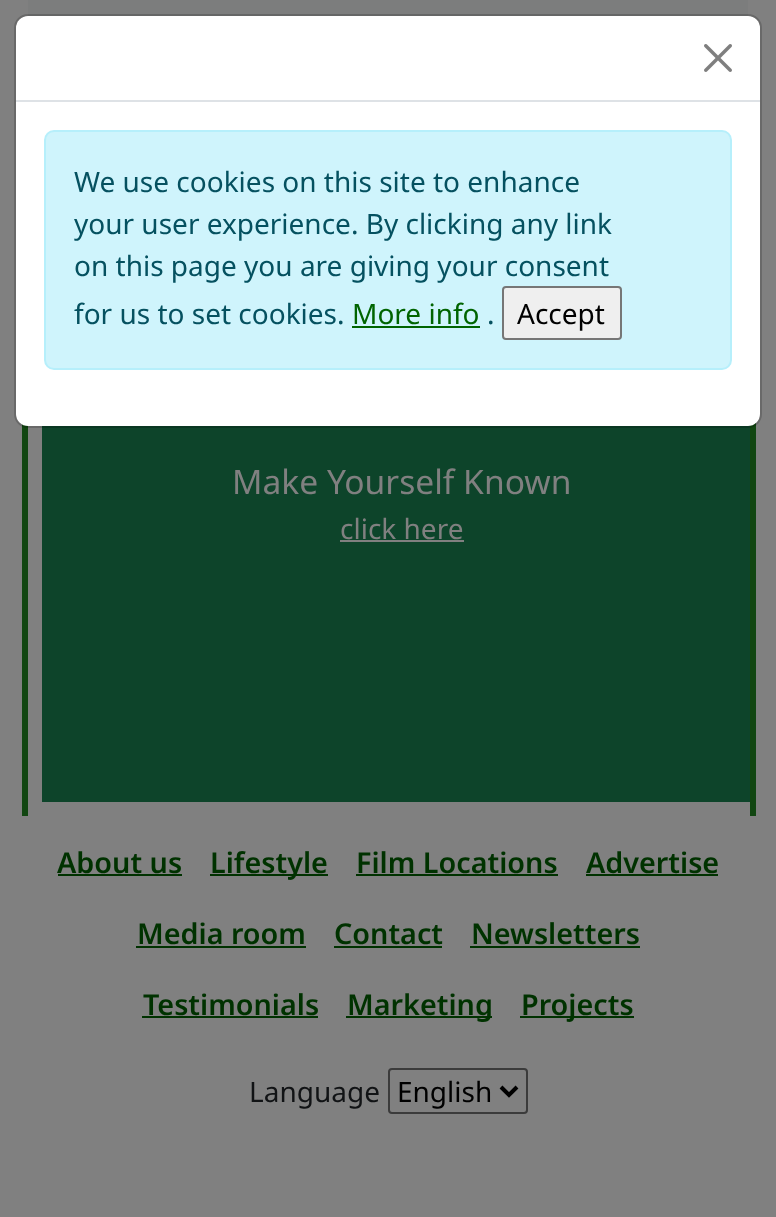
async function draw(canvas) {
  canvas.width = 776;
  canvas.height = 1217;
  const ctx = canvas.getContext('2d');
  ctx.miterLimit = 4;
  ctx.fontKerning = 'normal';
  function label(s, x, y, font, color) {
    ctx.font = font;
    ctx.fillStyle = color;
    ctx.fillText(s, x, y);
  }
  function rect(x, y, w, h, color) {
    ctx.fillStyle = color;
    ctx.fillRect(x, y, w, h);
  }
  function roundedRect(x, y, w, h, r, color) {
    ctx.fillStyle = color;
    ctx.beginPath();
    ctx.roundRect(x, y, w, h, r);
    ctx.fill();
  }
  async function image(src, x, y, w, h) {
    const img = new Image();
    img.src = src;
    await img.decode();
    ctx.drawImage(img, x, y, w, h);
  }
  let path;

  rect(0, 0, 776, 1217, '#808080');
  rect(28, 0, 720, 16, '#7c7d7d');
  rect(750, 422, 6, 394, '#114611');
  rect(22, 424, 6, 392, '#114611');
  rect(42, 425, 708, 377, '#0d442a');
  roundedRect(16, 16, 744, 410, 12, '#fff');
  ctx.beginPath();
  ctx.roundRect(15, 15, 746, 412, 13);
  ctx.strokeStyle = '#0000002e';
  ctx.lineWidth = 2;
  ctx.stroke();
  rect(16, 100, 744, 2, '#dee2e6');
  await image('assets/img1.png', 704, 44, 28, 28);
  ctx.fillStyle = '#cff4fc';
  ctx.beginPath();
  ctx.roundRect(45, 131, 686, 238, 9);
  ctx.fill();
  ctx.strokeStyle = '#b6effb';
  ctx.stroke();
  label('We use cookies on this site to enhance', 74, 192, '28px Noto Sans', '#055160');
  label('your user experience. By clicking any link', 74, 234, '28px Noto Sans', '#055160');
  label('on this page you are giving your consent', 74, 276, '28px Noto Sans', '#055160');
  label('for us to set cookies.', 74, 324, '28px Noto Sans', '#055160');
  label('More info', 352, 324, '28px Noto Sans', '#006400');
  rect(352, 326, 128, 2, '#006400');
  label('.', 487, 324, '28px Noto Sans', '#055160');
  ctx.fillStyle = '#efefef';
  ctx.beginPath();
  ctx.roundRect(503, 287, 118, 52, 3);
  ctx.fill();
  ctx.strokeStyle = '#767676';
  ctx.stroke();
  label('Accept', 517, 324, '28px Noto Sans', '#000');
  label('Make Yourself Known', 232, 494, '33.6px Noto Sans', '#808080');
  label('click here', 340, 539, '28px Noto Sans', '#808080');
  rect(340, 540, 124, 2, '#808080');
  label('About us', 57, 873, '600 28.75px Noto Sans', '#003200');
  rect(58, 874, 124, 2, '#003200');
  rect(210, 874, 118, 2, '#003200');
  label('Lifestyle', 210, 873, '600 28.75px Noto Sans', '#003200');
  label('Film Locations', 356, 873, '600 28.75px Noto Sans', '#003200');
  rect(356, 874, 202, 2, '#003200');
  label('Advertise', 586, 873, '600 28.75px Noto Sans', '#003200');
  rect(586, 874, 132, 2, '#003200');
  label('Media room', 137, 944, '600 28.75px Noto Sans', '#003200');
  rect(136, 946, 170, 2, '#003200');
  label('Contact', 334, 944, '600 28.75px Noto Sans', '#003200');
  rect(334, 946, 108, 2, '#003200');
  label('Newsletters', 471, 944, '600 28.75px Noto Sans', '#003200');
  rect(470, 946, 170, 2, '#003200');
  label('Testimonials', 143, 1015, '600 28.75px Noto Sans', '#003200');
  rect(142, 1016, 176, 2, '#003200');
  rect(346, 1016, 146, 2, '#003200');
  label('Marketing', 347, 1015, '600 28.75px Noto Sans', '#003200');
  rect(520, 1016, 114, 2, '#003200');
  label('Projects', 521, 1015, '600 28.75px Noto Sans', '#003200');
  label('Language', 249, 1102, '28px Noto Sans', '#111315');
  ctx.beginPath();
  ctx.roundRect(389, 1069, 138, 44, 3);
  ctx.strokeStyle = '#3b3b3b';
  ctx.stroke();
  path = new Path2D('M501 1087L509 1095L517 1087');
  ctx.strokeStyle = '#000';
  ctx.lineWidth = 4;
  ctx.stroke(path);
  label('English', 397, 1102, '28px Noto Sans', '#000');
}

draw(document.querySelector('canvas'));
